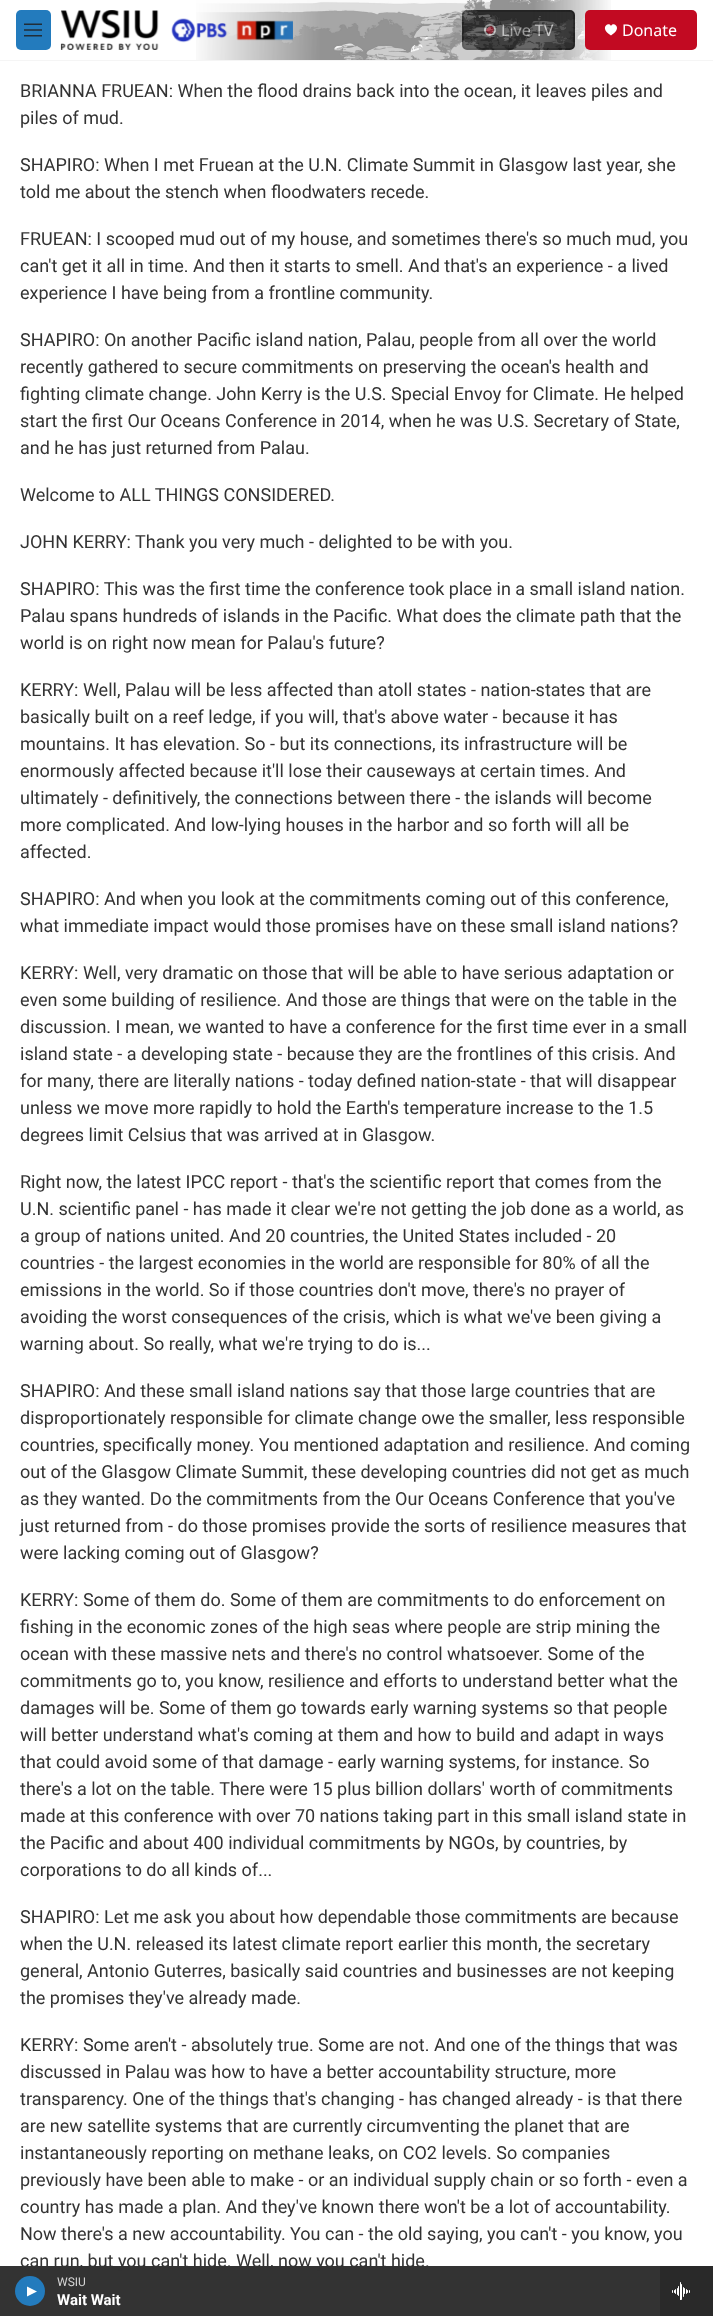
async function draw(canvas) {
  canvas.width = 713;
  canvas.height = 2316;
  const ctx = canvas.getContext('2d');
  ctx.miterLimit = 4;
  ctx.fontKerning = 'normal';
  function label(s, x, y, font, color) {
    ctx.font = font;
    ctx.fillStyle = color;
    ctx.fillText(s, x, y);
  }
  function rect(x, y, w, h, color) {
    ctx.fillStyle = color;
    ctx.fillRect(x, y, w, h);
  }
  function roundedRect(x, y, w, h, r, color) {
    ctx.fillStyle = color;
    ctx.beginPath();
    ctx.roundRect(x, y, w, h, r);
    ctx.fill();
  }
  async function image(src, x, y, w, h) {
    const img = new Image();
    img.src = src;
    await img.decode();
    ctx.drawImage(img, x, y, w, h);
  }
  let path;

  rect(0, 0, 713, 2316, '#fff');
  rect(0, 60, 713, 1, '#f5f5f5');
  ctx.fillStyle = '#333';
  ctx.beginPath();
  ctx.roundRect(463, 11, 111, 38, 4);
  ctx.fill();
  ctx.strokeStyle = '#212121';
  ctx.lineWidth = 2;
  ctx.stroke();
  ctx.beginPath();
  ctx.arc(490, 30, 5, 0, 2 * Math.PI);
  ctx.strokeStyle = '#fff';
  ctx.stroke();
  ctx.fillStyle = '#c20a22';
  path = new Path2D('M491 26C497 27.5 492.5 37 487.5 33C487 32.5 486 31.5 486 31C486 28.5 489 26.5 491 26Z');
  ctx.fill(path);
  label('Live TV', 501, 36, '16px Noto Sans', '#efefef');
  await image('assets/img1.png', 196, 0, 415, 60);
  roundedRect(16, 10, 35, 40, 5, '#237bbd');
  await image('assets/img2.png', 24, 23, 18, 14);
  await image('assets/img3.png', 60, 10, 233, 40);
  roundedRect(585, 10, 112, 40, 5, '#c20a22');
  ctx.fillStyle = '#fff';
  path = new Path2D('M611 26C609 21 598.5 28 611 35.5C623.5 28 613 21 611 26Z');
  ctx.fill(path);
  label('Donate', 622, 36, '16px Noto Sans', '#fff');
  rect(0, 2266, 660, 50, '#333');
  ctx.fillStyle = '#237bbd';
  ctx.beginPath();
  ctx.arc(30, 2291, 15, 0, 2 * Math.PI);
  ctx.fill();
  ctx.fillStyle = '#fff';
  path = new Path2D('M27 2286.5L37 2291.5L27 2296.5Z');
  ctx.fill(path);
  label('WSIU', 57, 2286, '12px Roboto', '#d6d6d6');
  label('Wait Wait', 57, 2305, 'bold 15px Roboto', '#fff');
  rect(660, 2266, 53, 50, '#292929');
  await image('assets/img4.png', 672, 2282, 18, 18);
  label('BRIANNA FRUEAN: When the flood drains back into the ocean, it leaves piles and', 20, 97, '18px Roboto', '#333');
  label('piles of mud.', 20, 124, '18px Roboto', '#333');
  label('SHAPIRO: When I met Fruean at the U.N. Climate Summit in Glasgow last year, she', 20, 171, '18px Roboto', '#333');
  label('told me about the stench when floodwaters recede.', 20, 198, '18px Roboto', '#333');
  label('FRUEAN: I scooped mud out of my house, and sometimes there\'s so much mud, you', 20, 245, '18px Roboto', '#333');
  label('can\'t get it all in time. And then it starts to smell. And that\'s an experience - a lived', 20, 272, '18px Roboto', '#333');
  label('experience I have being from a frontline community.', 20, 299, '18px Roboto', '#333');
  label('SHAPIRO: On another Pacific island nation, Palau, people from all over the world', 20, 346, '18px Roboto', '#333');
  label('recently gathered to secure commitments on preserving the ocean\'s health and', 20, 373, '18px Roboto', '#333');
  label('fighting climate change. John Kerry is the U.S. Special Envoy for Climate. He helped', 20, 400, '18px Roboto', '#333');
  label('start the first Our Oceans Conference in 2014, when he was U.S. Secretary of State,', 20, 427, '18px Roboto', '#333');
  label('and he has just returned from Palau.', 20, 454, '18px Roboto', '#333');
  label('Welcome to ALL THINGS CONSIDERED.', 20, 501, '18px Roboto', '#333');
  label('JOHN KERRY: Thank you very much - delighted to be with you.', 20, 548, '18px Roboto', '#333');
  label('SHAPIRO: This was the first time the conference took place in a small island nation.', 20, 595, '18px Roboto', '#333');
  label('Palau spans hundreds of islands in the Pacific. What does the climate path that the', 20, 622, '18px Roboto', '#333');
  label('world is on right now mean for Palau\'s future?', 20, 649, '18px Roboto', '#333');
  label('KERRY: Well, Palau will be less affected than atoll states - nation-states that are', 20, 696, '18px Roboto', '#333');
  label('basically built on a reef ledge, if you will, that\'s above water - because it has', 20, 723, '18px Roboto', '#333');
  label('mountains. It has elevation. So - but its connections, its infrastructure will be', 20, 750, '18px Roboto', '#333');
  label('enormously affected because it\'ll lose their causeways at certain times. And', 20, 777, '18px Roboto', '#333');
  label('ultimately - definitively, the connections between there - the islands will become', 20, 804, '18px Roboto', '#333');
  label('more complicated. And low-lying houses in the harbor and so forth will all be', 20, 831, '18px Roboto', '#333');
  label('affected.', 20, 858, '18px Roboto', '#333');
  label('SHAPIRO: And when you look at the commitments coming out of this conference,', 20, 905, '18px Roboto', '#333');
  label('what immediate impact would those promises have on these small island nations?', 20, 932, '18px Roboto', '#333');
  label('KERRY: Well, very dramatic on those that will be able to have serious adaptation or', 20, 979, '18px Roboto', '#333');
  label('even some building of resilience. And those are things that were on the table in the', 20, 1006, '18px Roboto', '#333');
  label('discussion. I mean, we wanted to have a conference for the first time ever in a small', 20, 1033, '18px Roboto', '#333');
  label('island state - a developing state - because they are the frontlines of this crisis. And', 20, 1060, '18px Roboto', '#333');
  label('for many, there are literally nations - today defined nation-state - that will disappear', 20, 1087, '18px Roboto', '#333');
  label('unless we move more rapidly to hold the Earth\'s temperature increase to the 1.5', 20, 1114, '18px Roboto', '#333');
  label('degrees limit Celsius that was arrived at in Glasgow.', 20, 1141, '18px Roboto', '#333');
  label('Right now, the latest IPCC report - that\'s the scientific report that comes from the', 20, 1188, '18px Roboto', '#333');
  label('U.N. scientific panel - has made it clear we\'re not getting the job done as a world, as', 20, 1215, '18px Roboto', '#333');
  label('a group of nations united. And 20 countries, the United States included - 20', 20, 1242, '18px Roboto', '#333');
  label('countries - the largest economies in the world are responsible for 80% of all the', 20, 1269, '18px Roboto', '#333');
  label('emissions in the world. So if those countries don\'t move, there\'s no prayer of', 20, 1296, '18px Roboto', '#333');
  label('avoiding the worst consequences of the crisis, which is what we\'ve been giving a', 20, 1323, '18px Roboto', '#333');
  label('warning about. So really, what we\'re trying to do is...', 20, 1350, '18px Roboto', '#333');
  label('SHAPIRO: And these small island nations say that those large countries that are', 20, 1397, '18px Roboto', '#333');
  label('disproportionately responsible for climate change owe the smaller, less responsible', 20, 1424, '18px Roboto', '#333');
  label('countries, specifically money. You mentioned adaptation and resilience. And coming', 20, 1451, '18px Roboto', '#333');
  label('out of the Glasgow Climate Summit, these developing countries did not get as much', 20, 1478, '18px Roboto', '#333');
  label('as they wanted. Do the commitments from the Our Oceans Conference that you\'ve', 20, 1505, '18px Roboto', '#333');
  label('just returned from - do those promises provide the sorts of resilience measures that', 20, 1532, '18px Roboto', '#333');
  label('were lacking coming out of Glasgow?', 20, 1559, '18px Roboto', '#333');
  label('KERRY: Some of them do. Some of them are commitments to do enforcement on', 20, 1606, '18px Roboto', '#333');
  label('fishing in the economic zones of the high seas where people are strip mining the', 20, 1633, '18px Roboto', '#333');
  label('ocean with these massive nets and there\'s no control whatsoever. Some of the', 20, 1660, '18px Roboto', '#333');
  label('commitments go to, you know, resilience and efforts to understand better what the', 20, 1687, '18px Roboto', '#333');
  label('damages will be. Some of them go towards early warning systems so that people', 20, 1714, '18px Roboto', '#333');
  label('will better understand what\'s coming at them and how to build and adapt in ways', 20, 1741, '18px Roboto', '#333');
  label('that could avoid some of that damage - early warning systems, for instance. So', 20, 1768, '18px Roboto', '#333');
  label('there\'s a lot on the table. There were 15 plus billion dollars\' worth of commitments', 20, 1795, '18px Roboto', '#333');
  label('made at this conference with over 70 nations taking part in this small island state in', 20, 1822, '18px Roboto', '#333');
  label('the Pacific and about 400 individual commitments by NGOs, by countries, by', 20, 1849, '18px Roboto', '#333');
  label('corporations to do all kinds of...', 20, 1876, '18px Roboto', '#333');
  label('SHAPIRO: Let me ask you about how dependable those commitments are because', 20, 1923, '18px Roboto', '#333');
  label('when the U.N. released its latest climate report earlier this month, the secretary', 20, 1950, '18px Roboto', '#333');
  label('general, Antonio Guterres, basically said countries and businesses are not keeping', 20, 1977, '18px Roboto', '#333');
  label('the promises they\'ve already made.', 20, 2004, '18px Roboto', '#333');
  label('KERRY: Some aren\'t - absolutely true. Some are not. And one of the things that was', 20, 2051, '18px Roboto', '#333');
  label('discussed in Palau was how to have a better accountability structure, more', 20, 2078, '18px Roboto', '#333');
  label('transparency. One of the things that\'s changing - has changed already - is that there', 20, 2105, '18px Roboto', '#333');
  label('are new satellite systems that are currently circumventing the planet that are', 20, 2132, '18px Roboto', '#333');
  label('instantaneously reporting on methane leaks, on CO2 levels. So companies', 20, 2159, '18px Roboto', '#333');
  label('previously have been able to make - or an individual supply chain or so forth - even a', 20, 2186, '18px Roboto', '#333');
  label('country has made a plan. And they\'ve known there won\'t be a lot of accountability.', 20, 2213, '18px Roboto', '#333');
  label('Now there\'s a new accountability. You can - the old saying, you can\'t - you know, you', 20, 2240, '18px Roboto', '#333');
  label('can run, but you can\'t hide. Well, now you can\'t hide.', 20, 2267, '18px Roboto', '#333');
}

draw(document.querySelector('canvas'));
